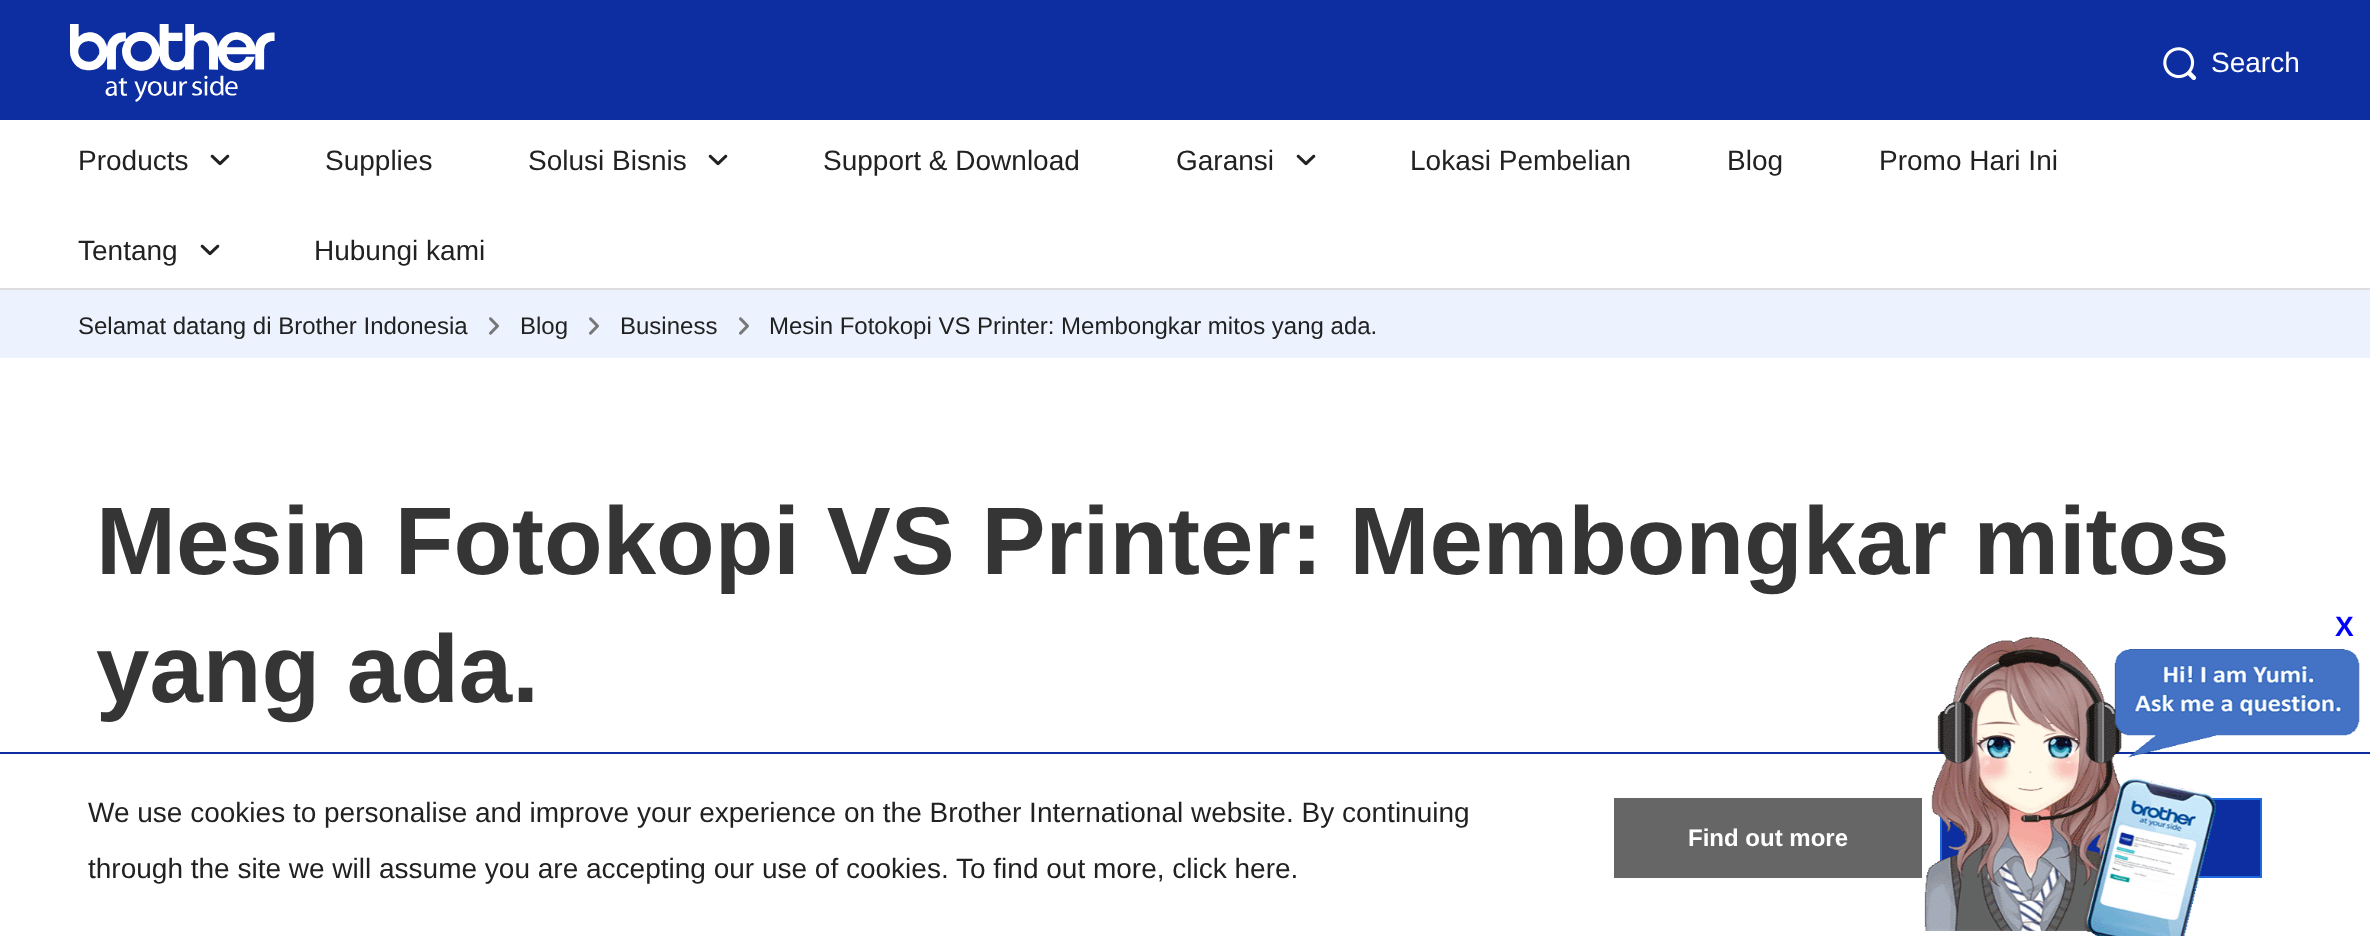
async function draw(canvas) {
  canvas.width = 2370;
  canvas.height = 936;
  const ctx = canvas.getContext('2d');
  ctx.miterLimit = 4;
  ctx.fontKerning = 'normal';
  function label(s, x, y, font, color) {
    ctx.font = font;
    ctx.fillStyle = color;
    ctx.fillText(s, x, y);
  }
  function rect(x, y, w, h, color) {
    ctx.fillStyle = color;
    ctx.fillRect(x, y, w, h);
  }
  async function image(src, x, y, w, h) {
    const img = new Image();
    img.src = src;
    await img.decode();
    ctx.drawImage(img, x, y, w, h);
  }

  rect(0, 0, 2370, 936, '#fff');
  rect(0, 0, 2370, 120, '#0d2ea0');
  await image('assets/img1.png', 70, 24, 205, 78);
  await image('assets/img2.png', 2163, 47, 34, 34);
  label('Search', 2211, 72, '28px Liberation Sans', '#fff');
  label('Products', 78, 170, '28px Liberation Sans', '#212121');
  await image('assets/img3.png', 210, 154, 20, 12);
  label('Supplies', 325, 170, '28px Liberation Sans', '#212121');
  label('Solusi Bisnis', 528, 170, '28px Liberation Sans', '#212121');
  await image('assets/img3.png', 708, 154, 20, 12);
  label('Support & Download', 823, 170, '28px Liberation Sans', '#212121');
  label('Garansi', 1176, 170, '28px Liberation Sans', '#212121');
  await image('assets/img3.png', 1296, 154, 20, 12);
  label('Lokasi Pembelian', 1410, 170, '28px Liberation Sans', '#212121');
  label('Blog', 1727, 170, '28px Liberation Sans', '#212121');
  label('Promo Hari Ini', 1879, 170, '28px Liberation Sans', '#212121');
  label('Tentang', 78, 260, '28px Liberation Sans', '#212121');
  await image('assets/img3.png', 200, 244, 20, 12);
  label('Hubungi kami', 314, 260, '28px Liberation Sans', '#212121');
  rect(0, 288, 2370, 2, '#ddd');
  rect(0, 290, 2370, 68, '#ecf2fe');
  label('Selamat datang di Brother Indonesia', 78, 334, '24px Liberation Sans', '#212121');
  await image('assets/img4.png', 489, 317, 10, 18);
  label('Blog', 520, 334, '24px Liberation Sans', '#212121');
  await image('assets/img4.png', 589, 317, 10, 18);
  label('Business', 620, 334, '24px Liberation Sans', '#212121');
  await image('assets/img4.png', 739, 317, 10, 18);
  label('Mesin Fotokopi VS Printer: Membongkar mitos yang ada.', 769, 334, '24px Liberation Sans', '#212121');
  label('Mesin Fotokopi VS Printer: Membongkar mitos', 96, 574, 'bold 96px Liberation Sans', '#353535');
  label('yang ada.', 96, 702, 'bold 96px Liberation Sans', '#353535');
  rect(0, 752, 2370, 2, '#0d2ea0');
  label('We use cookies to personalise and improve your experience on the Brother International website. By continuing', 88, 822, '28px Liberation Sans', '#212121');
  label('through the site we will assume you are accepting our use of cookies. To find out more, click here.', 88, 878, '28px Liberation Sans', '#212121');
  rect(1614, 798, 308, 80, '#666');
  label('Find out more', 1688, 846, 'bold 24px Liberation Sans', '#fff');
  ctx.fillStyle = '#0d2ea0';
  ctx.beginPath();
  ctx.rect(1941, 799, 320, 78);
  ctx.fill();
  ctx.strokeStyle = '#2169de';
  ctx.lineWidth = 2;
  ctx.stroke();
  await image('assets/img5.png', 1924, 636, 436, 300);
  label('X', 2335, 636, 'bold 28px Liberation Sans', '#00f');
}

draw(document.querySelector('canvas'));
